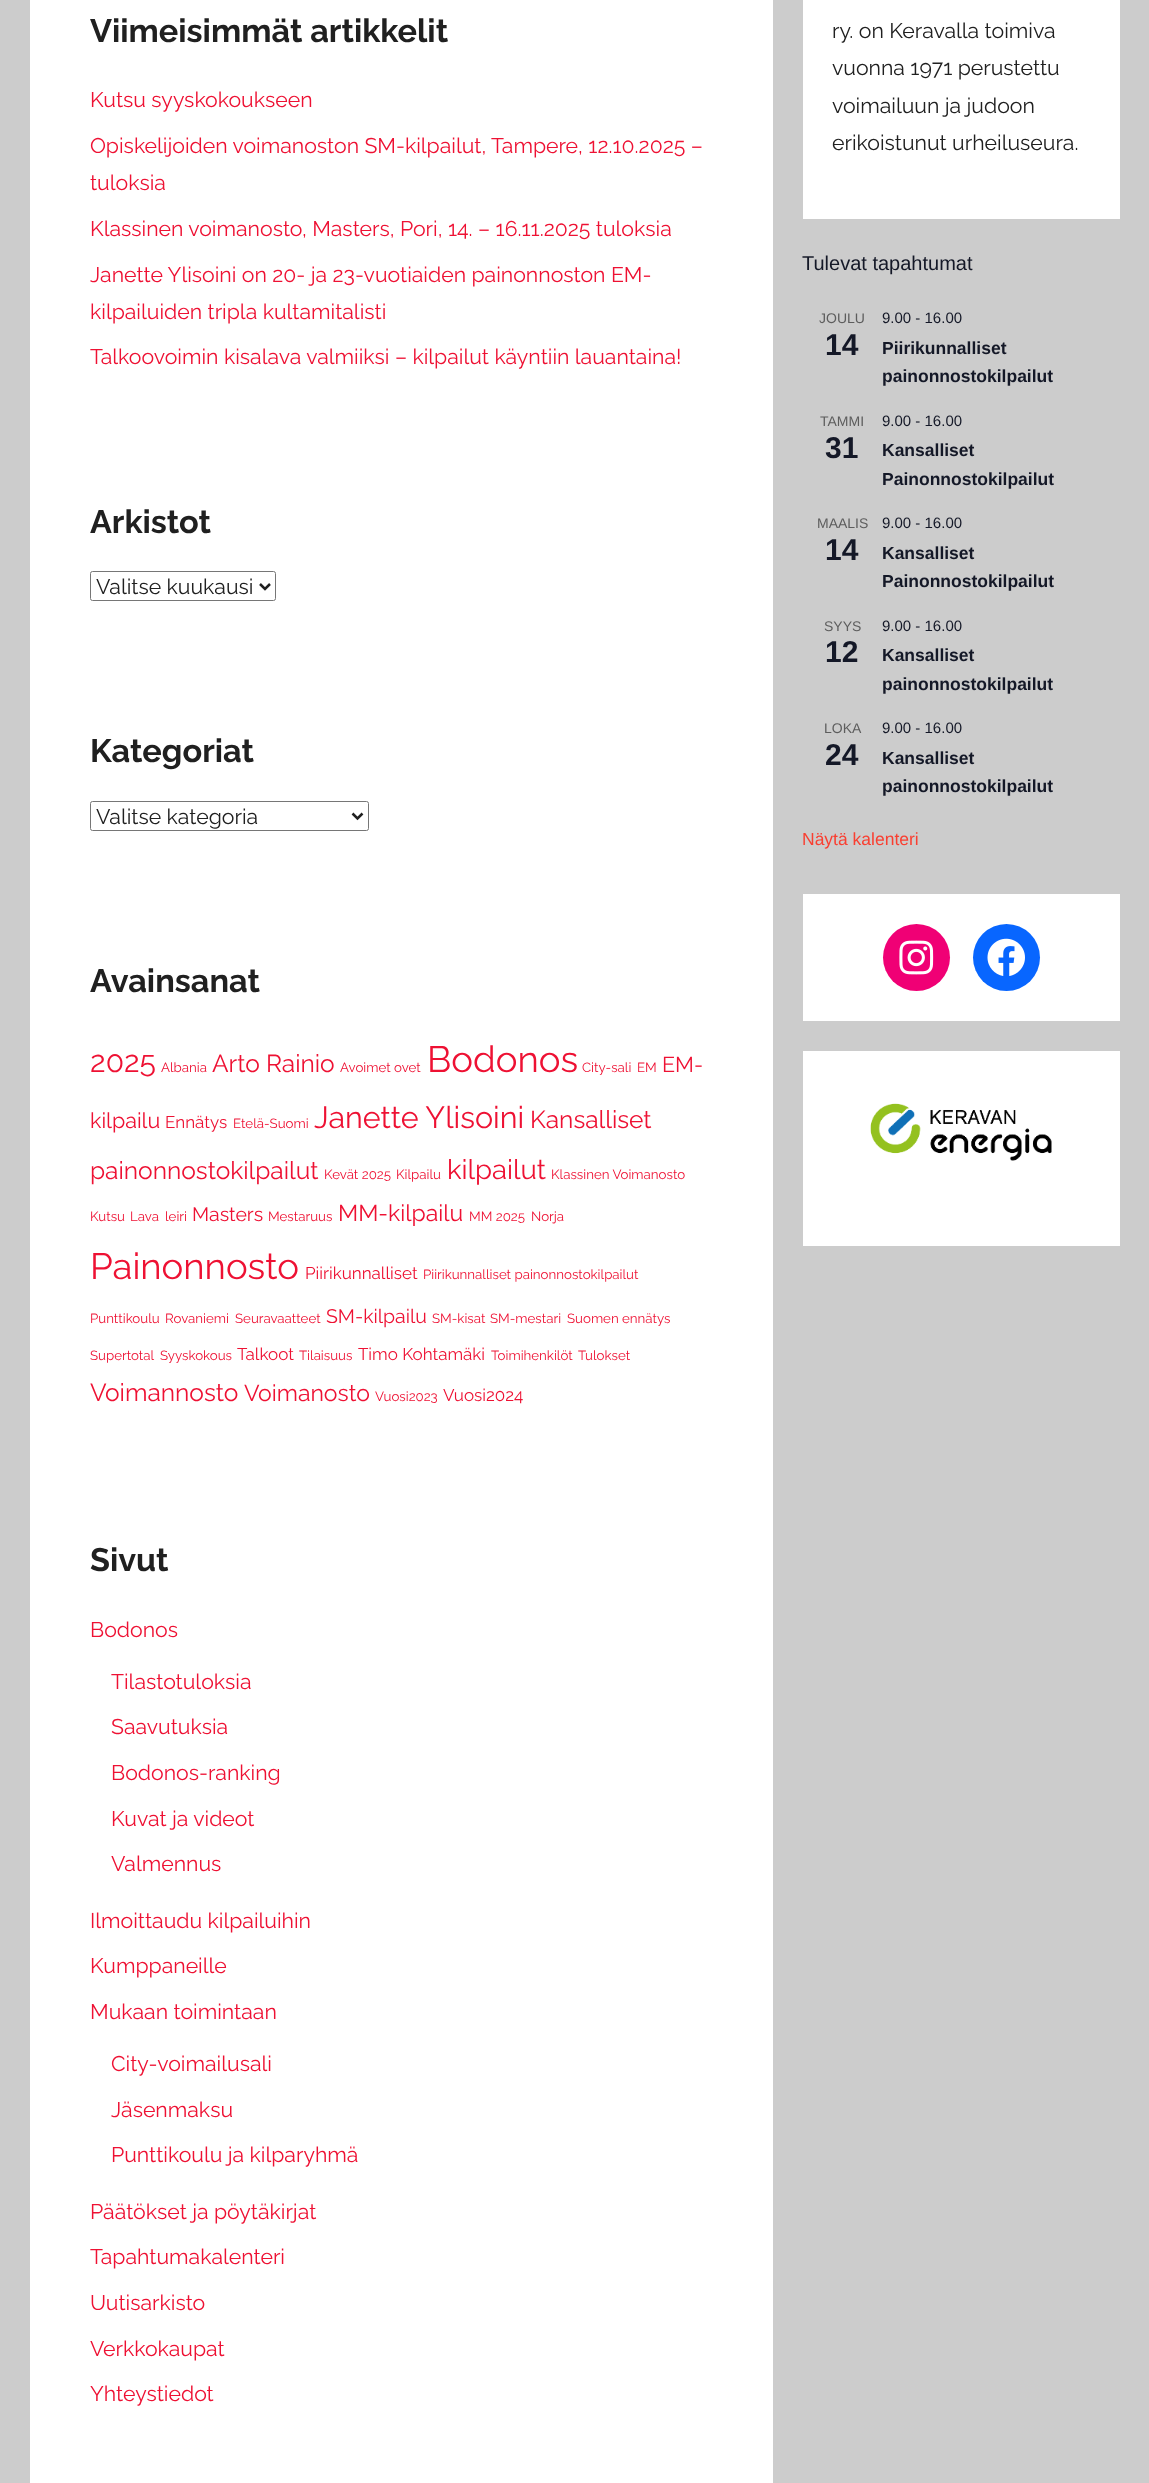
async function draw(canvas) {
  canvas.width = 1149;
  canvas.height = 2483;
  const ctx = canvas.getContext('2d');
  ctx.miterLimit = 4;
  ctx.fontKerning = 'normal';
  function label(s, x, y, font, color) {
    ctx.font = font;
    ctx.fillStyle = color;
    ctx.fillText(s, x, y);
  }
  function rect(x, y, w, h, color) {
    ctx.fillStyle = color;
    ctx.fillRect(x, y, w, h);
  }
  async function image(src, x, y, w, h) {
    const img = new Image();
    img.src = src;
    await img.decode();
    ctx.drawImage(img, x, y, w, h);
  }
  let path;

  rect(0, 0, 1149, 2483, '#ccc');
  rect(30, 0, 743, 2483, '#fff');
  label('Viimeisimmät artikkelit', 90, 42, '100 32.5px Raleway', '#202020');
  label('Kutsu syyskokoukseen', 90, 107, '100 21.25px "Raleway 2"', '#e13');
  label('Opiskelijoiden voimanoston SM-kilpailut, Tampere, 12.10.2025 –', 90, 153, '100 21.25px "Raleway 2"', '#e13');
  label('tuloksia', 90, 190, '100 21.25px "Raleway 2"', '#e13');
  label('Klassinen voimanosto, Masters, Pori, 14. – 16.11.2025 tuloksia', 90, 236, '100 21.25px "Raleway 2"', '#e13');
  label('Janette Ylisoini on 20- ja 23-vuotiaiden painonnoston EM-', 90, 282, '100 21.25px "Raleway 2"', '#e13');
  label('kilpailuiden tripla kultamitalisti', 90, 319, '100 21.25px "Raleway 2"', '#e13');
  label('Talkoovoimin kisalava valmiiksi – kilpailut käyntiin lauantaina!', 90, 364, '100 21.25px "Raleway 2"', '#e13');
  label('Arkistot', 90, 533, '100 32.5px Raleway', '#202020');
  ctx.beginPath();
  ctx.roundRect(90.5, 571.5, 185, 29, 2);
  ctx.strokeStyle = '#767676';
  ctx.stroke();
  path = new Path2D('M260 584L265 589L270 584');
  ctx.strokeStyle = '#202020';
  ctx.lineWidth = 2.5;
  ctx.stroke(path);
  label('Valitse kuukausi', 96, 594, '100 21.25px "Raleway 2"', '#202020');
  label('Kategoriat', 90, 762, '100 32.5px Raleway', '#202020');
  ctx.beginPath();
  ctx.roundRect(90.5, 801.5, 278, 29, 2);
  ctx.strokeStyle = '#767676';
  ctx.lineWidth = 1;
  ctx.stroke();
  path = new Path2D('M352.5 813.5L357.5 818.5L362.5 813.5');
  ctx.strokeStyle = '#202020';
  ctx.lineWidth = 2.5;
  ctx.stroke(path);
  label('Valitse kategoria', 96, 824, '100 21.25px "Raleway 2"', '#202020');
  label('Avainsanat', 90, 992, '100 32.5px Raleway', '#202020');
  label('2025', 90, 1072, '100 30px "Raleway 2"', '#e13');
  label('Albania', 161, 1072, '100 13.3px "Raleway 2"', '#e13');
  label('Arto Rainio', 212, 1072, '100 24.5px "Raleway 2"', '#e13');
  label('Avoimet ovet', 340, 1072, '100 13.3px "Raleway 2"', '#e13');
  label('Bodonos', 427, 1072, '100 36.5px "Raleway 2"', '#e13');
  label('City-sali', 582, 1072, '100 13.3px "Raleway 2"', '#e13');
  label('EM', 637, 1072, '100 13.3px "Raleway 2"', '#e13');
  label('EM-', 662, 1072, '100 21.5px "Raleway 2"', '#e13');
  label('kilpailu', 90, 1128, '100 21.5px "Raleway 2"', '#e13');
  label('Ennätys', 165, 1128, '100 17px "Raleway 2"', '#e13');
  label('Etelä-Suomi', 233, 1128, '100 13.3px "Raleway 2"', '#e13');
  label('Janette Ylisoini', 314, 1128, '100 30.5px "Raleway 2"', '#e13');
  label('Kansalliset', 530, 1128, '100 24.5px "Raleway 2"', '#e13');
  label('painonnostokilpailut', 90, 1179, '100 24.5px "Raleway 2"', '#e13');
  label('Kevät 2025', 324, 1179, '100 13.3px "Raleway 2"', '#e13');
  label('Kilpailu', 396, 1179, '100 13.3px "Raleway 2"', '#e13');
  label('kilpailut', 447, 1179, '100 27.5px "Raleway 2"', '#e13');
  label('Klassinen Voimanosto', 551, 1179, '100 13.3px "Raleway 2"', '#e13');
  label('Kutsu', 90, 1221, '100 13.3px "Raleway 2"', '#e13');
  label('Lava', 130, 1221, '100 13.3px "Raleway 2"', '#e13');
  label('leiri', 165, 1221, '100 13.3px "Raleway 2"', '#e13');
  label('Masters', 192, 1221, '100 19.5px "Raleway 2"', '#e13');
  label('Mestaruus', 268, 1221, '100 13.3px "Raleway 2"', '#e13');
  label('MM-kilpailu', 338, 1221, '100 23px "Raleway 2"', '#e13');
  label('MM 2025', 469, 1221, '100 13.3px "Raleway 2"', '#e13');
  label('Norja', 531, 1221, '100 13.3px "Raleway 2"', '#e13');
  label('Painonnosto', 90, 1279, '100 36.5px "Raleway 2"', '#e13');
  label('Piirikunnalliset', 305, 1279, '100 17px "Raleway 2"', '#e13');
  label('Piirikunnalliset painonnostokilpailut', 423, 1279, '100 13.3px "Raleway 2"', '#e13');
  label('Punttikoulu', 90, 1323, '100 13.3px "Raleway 2"', '#e13');
  label('Rovaniemi', 165, 1323, '100 13.3px "Raleway 2"', '#e13');
  label('Seuravaatteet', 235, 1323, '100 13.3px "Raleway 2"', '#e13');
  label('SM-kilpailu', 326, 1323, '100 19.5px "Raleway 2"', '#e13');
  label('SM-kisat', 432, 1323, '100 13.3px "Raleway 2"', '#e13');
  label('SM-mestari', 490, 1323, '100 13.3px "Raleway 2"', '#e13');
  label('Suomen ennätys', 567, 1323, '100 13.3px "Raleway 2"', '#e13');
  label('Supertotal', 90, 1360, '100 13.3px "Raleway 2"', '#e13');
  label('Syyskokous', 160, 1360, '100 13.3px "Raleway 2"', '#e13');
  label('Talkoot', 237, 1360, '100 17px "Raleway 2"', '#e13');
  label('Tilaisuus', 299, 1360, '100 13.3px "Raleway 2"', '#e13');
  label('Timo Kohtamäki', 358, 1360, '100 17px "Raleway 2"', '#e13');
  label('Toimihenkilöt', 491, 1360, '100 13.3px "Raleway 2"', '#e13');
  label('Tulokset', 578, 1360, '100 13.3px "Raleway 2"', '#e13');
  label('Voimannosto', 90, 1401, '100 24.5px "Raleway 2"', '#e13');
  label('Voimanosto', 244, 1401, '100 23px "Raleway 2"', '#e13');
  label('Vuosi2023', 375, 1401, '100 13.3px "Raleway 2"', '#e13');
  label('Vuosi2024', 443, 1401, '100 17px "Raleway 2"', '#e13');
  label('Sivut', 90, 1571, '100 32.5px Raleway', '#202020');
  label('Bodonos', 90, 1637, '100 21.25px "Raleway 2"', '#e13');
  label('Tilastotuloksia', 111, 1689, '100 21.25px "Raleway 2"', '#e13');
  label('Saavutuksia', 111, 1734, '100 21.25px "Raleway 2"', '#e13');
  label('Bodonos-ranking', 111, 1780, '100 21.25px "Raleway 2"', '#e13');
  label('Kuvat ja videot', 111, 1826, '100 21.25px "Raleway 2"', '#e13');
  label('Valmennus', 111, 1871, '100 21.25px "Raleway 2"', '#e13');
  label('Ilmoittaudu kilpailuihin', 90, 1928, '100 21.25px "Raleway 2"', '#e13');
  label('Kumppaneille', 90, 1973, '100 21.25px "Raleway 2"', '#e13');
  label('Mukaan toimintaan', 90, 2019, '100 21.25px "Raleway 2"', '#e13');
  label('City-voimailusali', 111, 2071, '100 21.25px "Raleway 2"', '#e13');
  label('Jäsenmaksu', 111, 2117, '100 21.25px "Raleway 2"', '#e13');
  label('Punttikoulu ja kilparyhmä', 111, 2162, '100 21.25px "Raleway 2"', '#e13');
  label('Päätökset ja pöytäkirjat', 90, 2219, '100 21.25px "Raleway 2"', '#e13');
  label('Tapahtumakalenteri', 90, 2264, '100 21.25px "Raleway 2"', '#e13');
  label('Uutisarkisto', 90, 2310, '100 21.25px "Raleway 2"', '#e13');
  label('Verkkokaupat', 90, 2356, '100 21.25px "Raleway 2"', '#e13');
  label('Yhteystiedot', 90, 2401, '100 21.25px "Raleway 2"', '#e13');
  rect(803, 0, 317, 219, '#fff');
  label('ry. on Keravalla toimiva', 832, 38, '100 21.25px "Raleway 2"', '#202020');
  label('vuonna 1971 perustettu', 832, 75, '100 21.25px "Raleway 2"', '#202020');
  label('voimailuun ja judoon', 832, 113, '100 21.25px "Raleway 2"', '#202020');
  label('erikoistunut urheiluseura.', 832, 150, '100 21.25px "Raleway 2"', '#202020');
  label('Tulevat tapahtumat', 802, 270, '20px Liberation Sans', '#141827');
  label('JOULU', 819, 323, '14px Liberation Sans', '#5d5d5d');
  label('14', 825, 355, 'bold 30px Liberation Sans', '#141827');
  label('9.00 - 16.00', 882, 323, '15px Liberation Sans', '#141827');
  label('Piirikunnalliset', 882, 354, 'bold 17.5px Liberation Sans', '#141827');
  label('painonnostokilpailut', 882, 382, 'bold 17.5px Liberation Sans', '#141827');
  label('TAMMI', 820, 426, '14px Liberation Sans', '#5d5d5d');
  label('31', 825, 458, 'bold 30px Liberation Sans', '#141827');
  label('9.00 - 16.00', 882, 426, '15px Liberation Sans', '#141827');
  label('Kansalliset', 882, 456, 'bold 17.5px Liberation Sans', '#141827');
  label('Painonnostokilpailut', 882, 485, 'bold 17.5px Liberation Sans', '#141827');
  label('MAALIS', 817, 528, '14px Liberation Sans', '#5d5d5d');
  label('14', 825, 560, 'bold 30px Liberation Sans', '#141827');
  label('9.00 - 16.00', 882, 528, '15px Liberation Sans', '#141827');
  label('Kansalliset', 882, 559, 'bold 17.5px Liberation Sans', '#141827');
  label('Painonnostokilpailut', 882, 587, 'bold 17.5px Liberation Sans', '#141827');
  label('SYYS', 824, 631, '14px Liberation Sans', '#5d5d5d');
  label('12', 825, 662, 'bold 30px Liberation Sans', '#141827');
  label('9.00 - 16.00', 882, 631, '15px Liberation Sans', '#141827');
  label('Kansalliset', 882, 661, 'bold 17.5px Liberation Sans', '#141827');
  label('painonnostokilpailut', 882, 690, 'bold 17.5px Liberation Sans', '#141827');
  label('LOKA', 824, 733, '14px Liberation Sans', '#5d5d5d');
  label('24', 825, 765, 'bold 30px Liberation Sans', '#141827');
  label('9.00 - 16.00', 882, 733, '15px Liberation Sans', '#141827');
  label('Kansalliset', 882, 764, 'bold 17.5px Liberation Sans', '#141827');
  label('painonnostokilpailut', 882, 792, 'bold 17.5px Liberation Sans', '#141827');
  label('Näytä kalenteri', 802, 845, '17.5px Liberation Sans', '#f93f31');
  rect(803, 894, 317, 127, '#fff');
  ctx.fillStyle = '#f00075';
  ctx.beginPath();
  ctx.arc(916.5, 957.5, 33.5, 0, 2 * Math.PI);
  ctx.fill();
  await image('assets/img1.png', 899, 940, 35, 35);
  ctx.fillStyle = '#0866ff';
  ctx.beginPath();
  ctx.arc(1006.5, 957.5, 33.5, 0, 2 * Math.PI);
  ctx.fill();
  await image('assets/img2.png', 987, 938, 38, 38);
  rect(803, 1051, 317, 195, '#fff');
  await image('assets/img3.png', 870, 1103, 182, 58);
}

draw(document.querySelector('canvas'));
